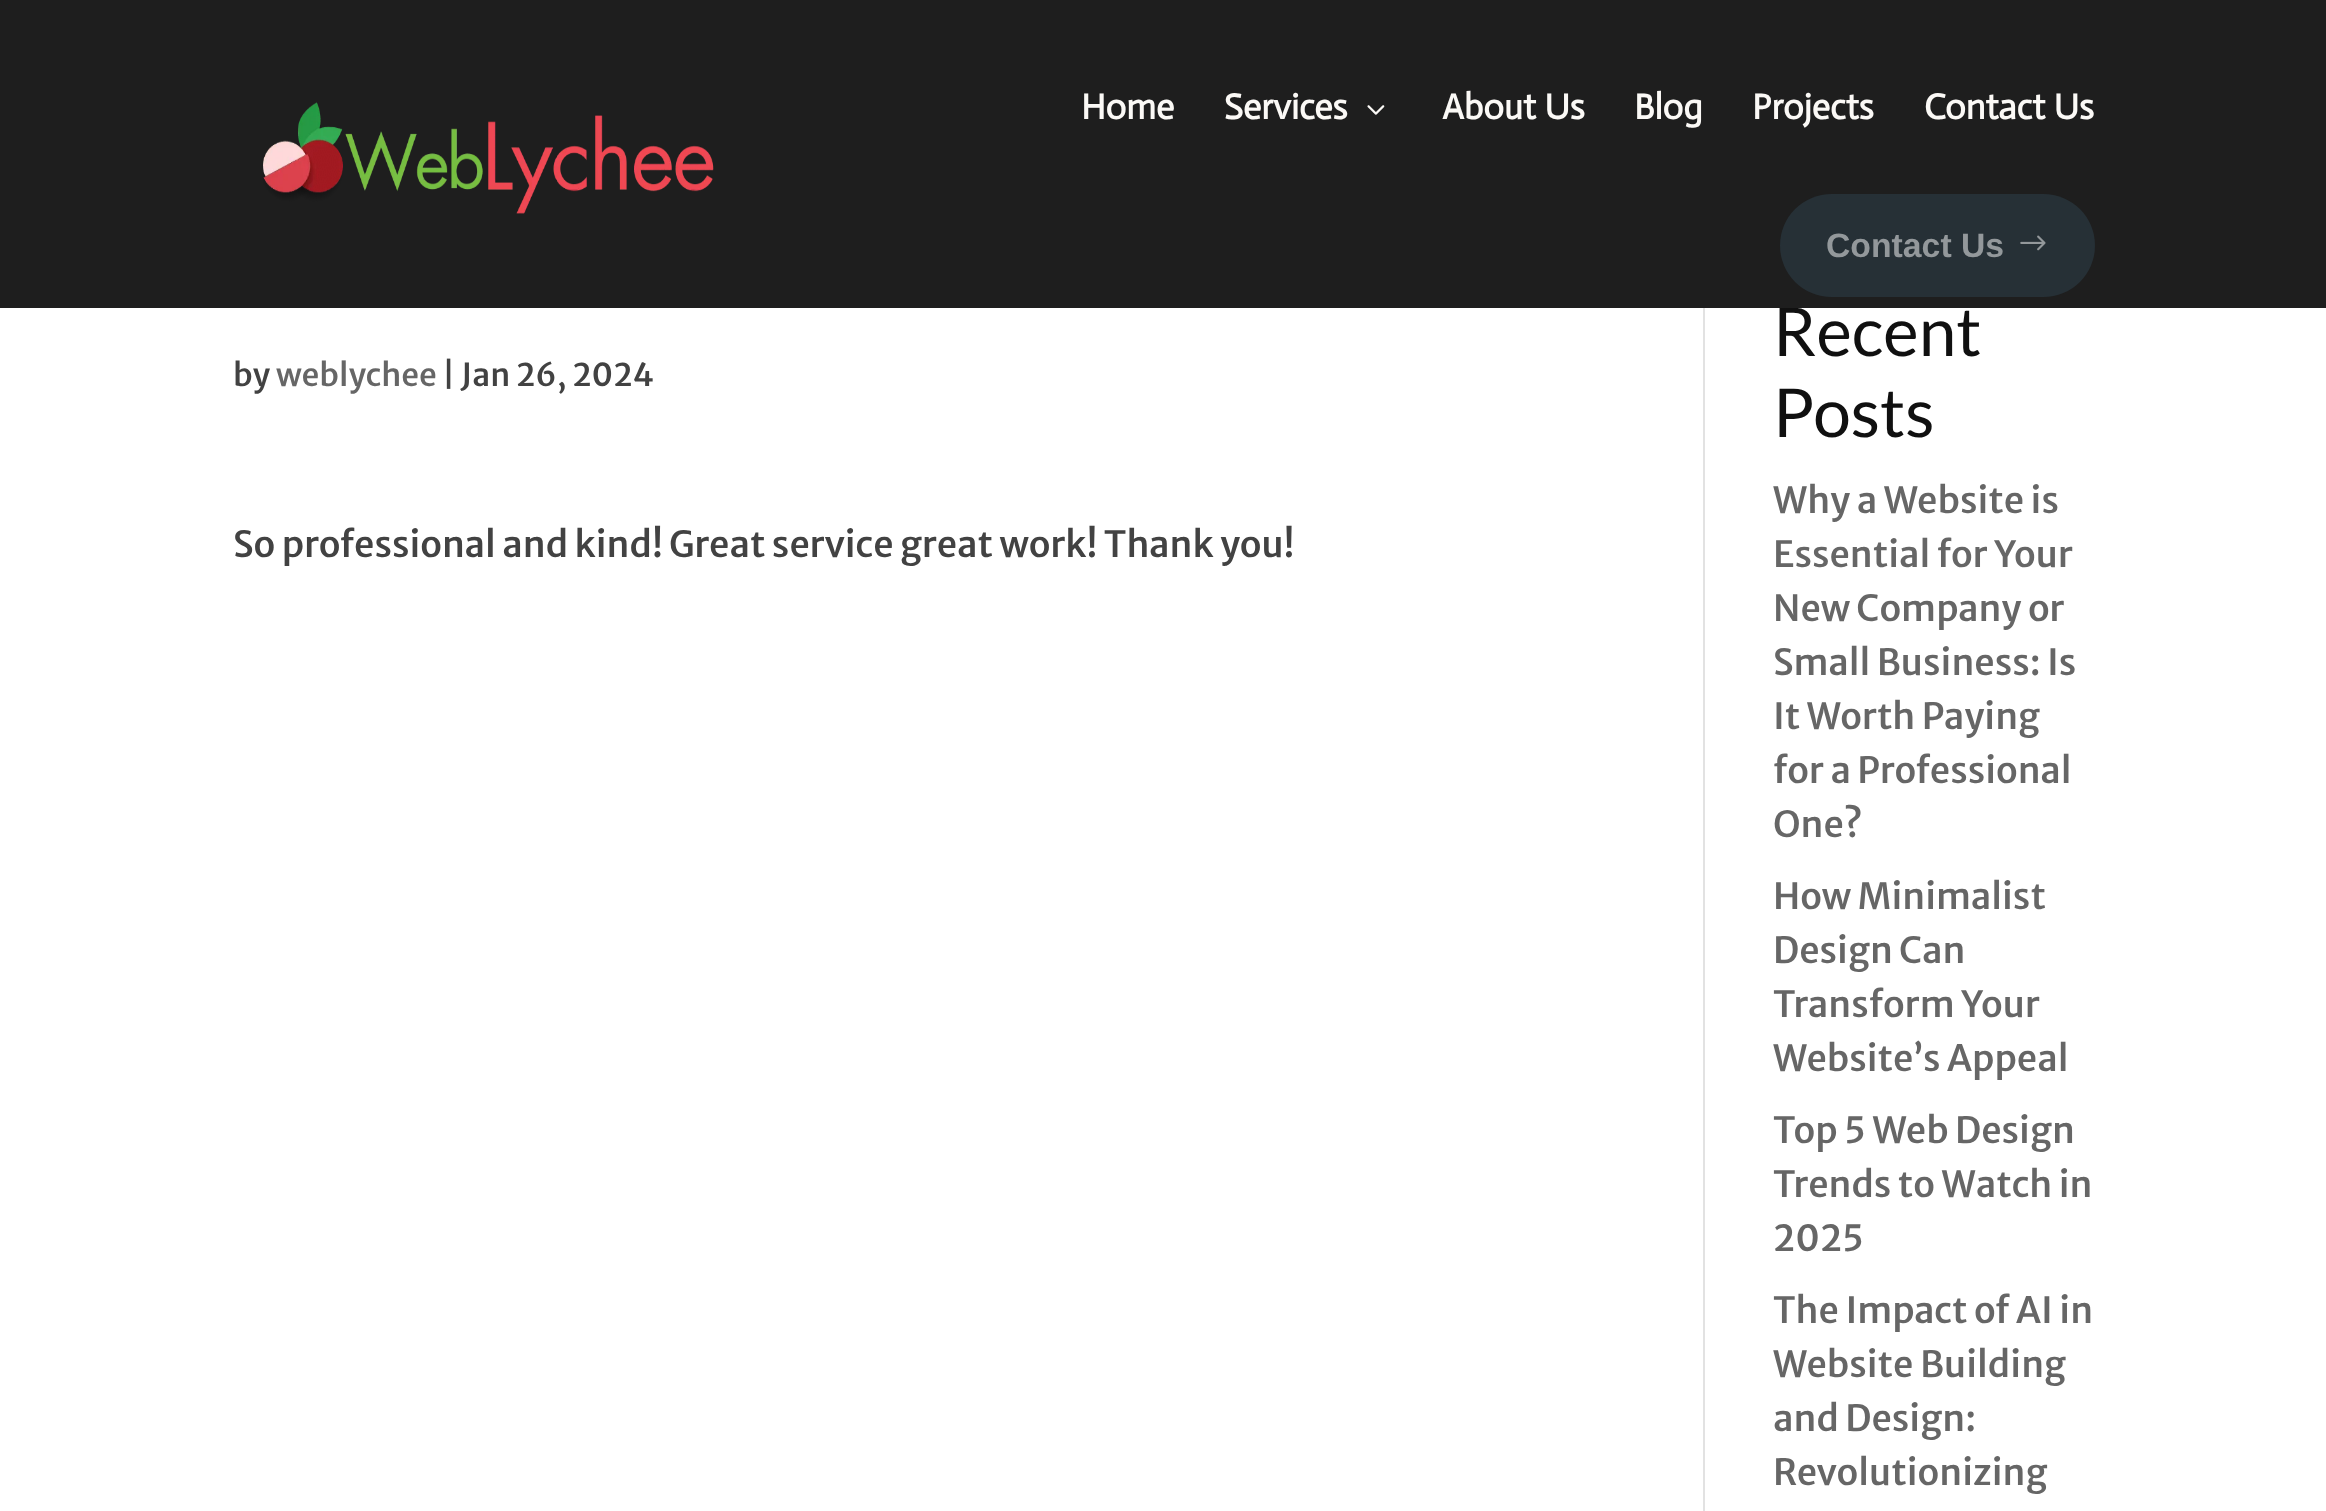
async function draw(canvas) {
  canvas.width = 2326;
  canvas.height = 1511;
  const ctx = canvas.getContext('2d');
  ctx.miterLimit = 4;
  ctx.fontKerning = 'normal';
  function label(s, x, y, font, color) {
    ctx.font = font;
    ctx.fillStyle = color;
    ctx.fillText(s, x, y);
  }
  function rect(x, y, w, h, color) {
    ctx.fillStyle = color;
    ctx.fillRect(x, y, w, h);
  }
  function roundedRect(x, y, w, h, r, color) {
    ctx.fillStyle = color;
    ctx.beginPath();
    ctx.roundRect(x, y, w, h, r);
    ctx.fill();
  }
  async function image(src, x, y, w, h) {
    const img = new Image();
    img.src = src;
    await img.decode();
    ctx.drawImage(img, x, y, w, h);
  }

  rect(0, 0, 2326, 1511, '#fff');
  label('Recent', 1773, 356, '67.5px Lato', '#101010');
  rect(0, 0, 2326, 308, '#1e1e1e');
  await image('assets/img1.png', 263, 102, 451, 112);
  label('Home', 1081, 119, 'bold 36px Actor', '#fbf9f6');
  label('Services', 1224, 119, 'bold 36px Actor', '#fbf9f6');
  await image('assets/img2.png', 1367, 105, 18, 10);
  label('About Us', 1442, 119, 'bold 36px Actor', '#fbf9f6');
  label('Blog', 1634, 119, 'bold 36px Actor', '#fbf9f6');
  label('Projects', 1752, 119, 'bold 36px Actor', '#fbf9f6');
  label('Contact Us', 1924, 119, 'bold 36px Actor', '#fbf9f6');
  roundedRect(1780, 194, 315, 103, 51.5, '#263036');
  label('Contact Us', 1826, 257, 'bold 33.75px Liberation Sans', '#93989b');
  await image('assets/img3.png', 2020, 235, 26, 16);
  label('by', 233, 386, '500 31.5px Merriweather Sans', '#424242');
  label('weblychee', 276, 386, '500 31.5px Merriweather Sans', '#666');
  label('| Jan 26, 2024', 442, 386, '500 31.5px Merriweather Sans', '#424242');
  label('So professional and kind! Great service great work! Thank you!', 233, 557, '500 36px Merriweather Sans', '#424242');
  label('Posts', 1773, 437, '67.5px Lato', '#101010');
  label('Why a Website is', 1773, 513, '500 36px Merriweather Sans', '#666');
  label('Essential for Your', 1773, 567, '500 36px Merriweather Sans', '#666');
  label('New Company or', 1773, 621, '500 36px Merriweather Sans', '#666');
  label('Small Business: Is', 1773, 675, '500 36px Merriweather Sans', '#666');
  label('It Worth Paying', 1773, 729, '500 36px Merriweather Sans', '#666');
  label('for a Professional', 1773, 783, '500 36px Merriweather Sans', '#666');
  label('One?', 1773, 837, '500 36px Merriweather Sans', '#666');
  label('How Minimalist', 1773, 909, '500 36px Merriweather Sans', '#666');
  label('Design Can', 1773, 963, '500 36px Merriweather Sans', '#666');
  label('Transform Your', 1773, 1017, '500 36px Merriweather Sans', '#666');
  label('Website’s Appeal', 1773, 1071, '500 36px Merriweather Sans', '#666');
  label('Top 5 Web Design', 1773, 1143, '500 36px Merriweather Sans', '#666');
  label('Trends to Watch in', 1773, 1197, '500 36px Merriweather Sans', '#666');
  label('2025', 1773, 1251, '500 36px Merriweather Sans', '#666');
  label('The Impact of AI in', 1773, 1323, '500 36px Merriweather Sans', '#666');
  label('Website Building', 1773, 1377, '500 36px Merriweather Sans', '#666');
  label('and Design:', 1773, 1431, '500 36px Merriweather Sans', '#666');
  label('Revolutionizing', 1773, 1485, '500 36px Merriweather Sans', '#666');
  rect(1703, 308, 2, 1203, '#e2e2e2');
}

draw(document.querySelector('canvas'));
